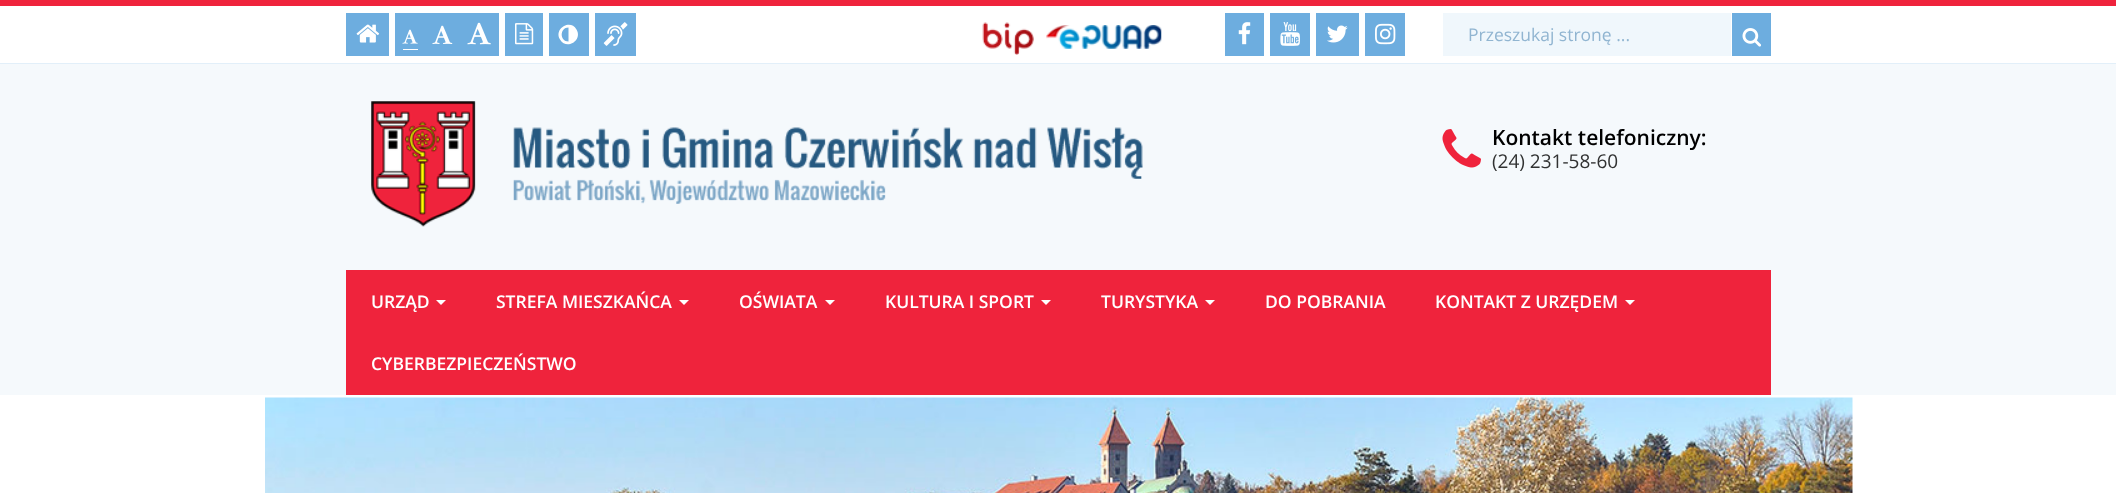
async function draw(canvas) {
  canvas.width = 2116;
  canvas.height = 493;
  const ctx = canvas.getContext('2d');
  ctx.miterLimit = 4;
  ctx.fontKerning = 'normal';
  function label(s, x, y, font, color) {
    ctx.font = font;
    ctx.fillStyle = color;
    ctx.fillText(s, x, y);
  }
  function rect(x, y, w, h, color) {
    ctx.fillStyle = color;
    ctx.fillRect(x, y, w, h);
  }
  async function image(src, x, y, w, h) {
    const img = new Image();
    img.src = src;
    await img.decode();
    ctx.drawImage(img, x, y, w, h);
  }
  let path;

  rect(0, 0, 2116, 493, '#fff');
  rect(0, 0, 2116, 6, '#ef233c');
  rect(0, 63, 2116, 1, '#e2eff9');
  rect(346, 13, 43, 43, '#6daddf');
  await image('assets/img1.png', 356, 24, 24, 19);
  rect(395, 13, 104, 43, '#6daddf');
  rect(403, 49, 15, 1, '#fff');
  await image('assets/img2.png', 402, 29, 16, 15);
  await image('assets/img3.png', 432, 25, 21, 19);
  await image('assets/img4.png', 467, 22, 24, 23);
  rect(505, 13, 38, 43, '#6daddf');
  await image('assets/img5.png', 515, 23, 19, 22);
  rect(549, 13, 40, 43, '#6daddf');
  ctx.fillStyle = '#fff';
  path = new Path2D('M568.5 41.5V27.5C559.5 27.5 559.5 41.5 568.5 41.5ZM576.5 29.5C583 40.5 566.5 50.5 560 39.5C553.5 28.5 570.5 18.5 576.5 29.5Z');
  ctx.fill(path);
  rect(595, 13, 41, 43, '#6daddf');
  await image('assets/img6.png', 603, 22, 25, 24);
  await image('assets/img7.png', 982, 22, 52, 33);
  await image('assets/img8.png', 1046, 25, 116, 24);
  rect(1225, 13, 39, 43, '#6daddf');
  await image('assets/img9.png', 1238, 22, 13, 23);
  rect(1270, 13, 40, 43, '#6daddf');
  await image('assets/img10.png', 1280, 22, 20, 24);
  rect(1316, 13, 43, 43, '#6daddf');
  await image('assets/img11.png', 1327, 25, 21, 18);
  rect(1365, 13, 40, 43, '#6daddf');
  await image('assets/img12.png', 1375, 23, 21, 22);
  rect(1443, 13, 288, 43, '#f0f7fc');
  label('Przeszukaj stronę ...', 1468, 41, '17.5px Open Sans', '#91b5d1');
  rect(1732, 13, 39, 43, '#6daddf');
  await image('assets/img13.png', 1742, 28, 19, 19);
  rect(0, 64, 2116, 331, '#f5f9fc');
  await image('assets/img14.png', 371, 101, 772, 126);
  await image('assets/img15.png', 1442, 129, 39, 39);
  label('Kontakt telefoniczny:', 1492, 145, '600 21px Open Sans', '#000');
  label('(24) 231-58-60', 1492, 168, '19px Open Sans', '#313232');
  rect(346, 270, 1425, 125, '#ef233c');
  label('URZĄD', 371, 308, '600 17.5px Open Sans', '#fff');
  path = new Path2D('M436 300H446L441 305Z');
  ctx.fill(path);
  label('STREFA MIESZKAŃCA', 496, 308, '600 17.5px Open Sans', '#fff');
  path = new Path2D('M679 300H689L684 305Z');
  ctx.fill(path);
  label('OŚWIATA', 739, 308, '600 17.5px Open Sans', '#fff');
  path = new Path2D('M825 300H835L830 305Z');
  ctx.fill(path);
  label('KULTURA I SPORT', 885, 308, '600 17.5px Open Sans', '#fff');
  path = new Path2D('M1041 300H1051L1046 305Z');
  ctx.fill(path);
  label('TURYSTYKA', 1101, 308, '600 17.5px Open Sans', '#fff');
  path = new Path2D('M1205 300H1215L1210 305Z');
  ctx.fill(path);
  label('DO POBRANIA', 1265, 308, '600 17.5px Open Sans', '#fff');
  label('KONTAKT Z URZĘDEM', 1435, 308, '600 17.5px Open Sans', '#fff');
  path = new Path2D('M1625 300H1635L1630 305Z');
  ctx.fill(path);
  label('CYBERBEZPIECZEŃSTWO', 371, 370, '600 17.5px Open Sans', '#fff');
  await image('assets/img16.png', 265, 397, 1588, 96);
}

draw(document.querySelector('canvas'));
